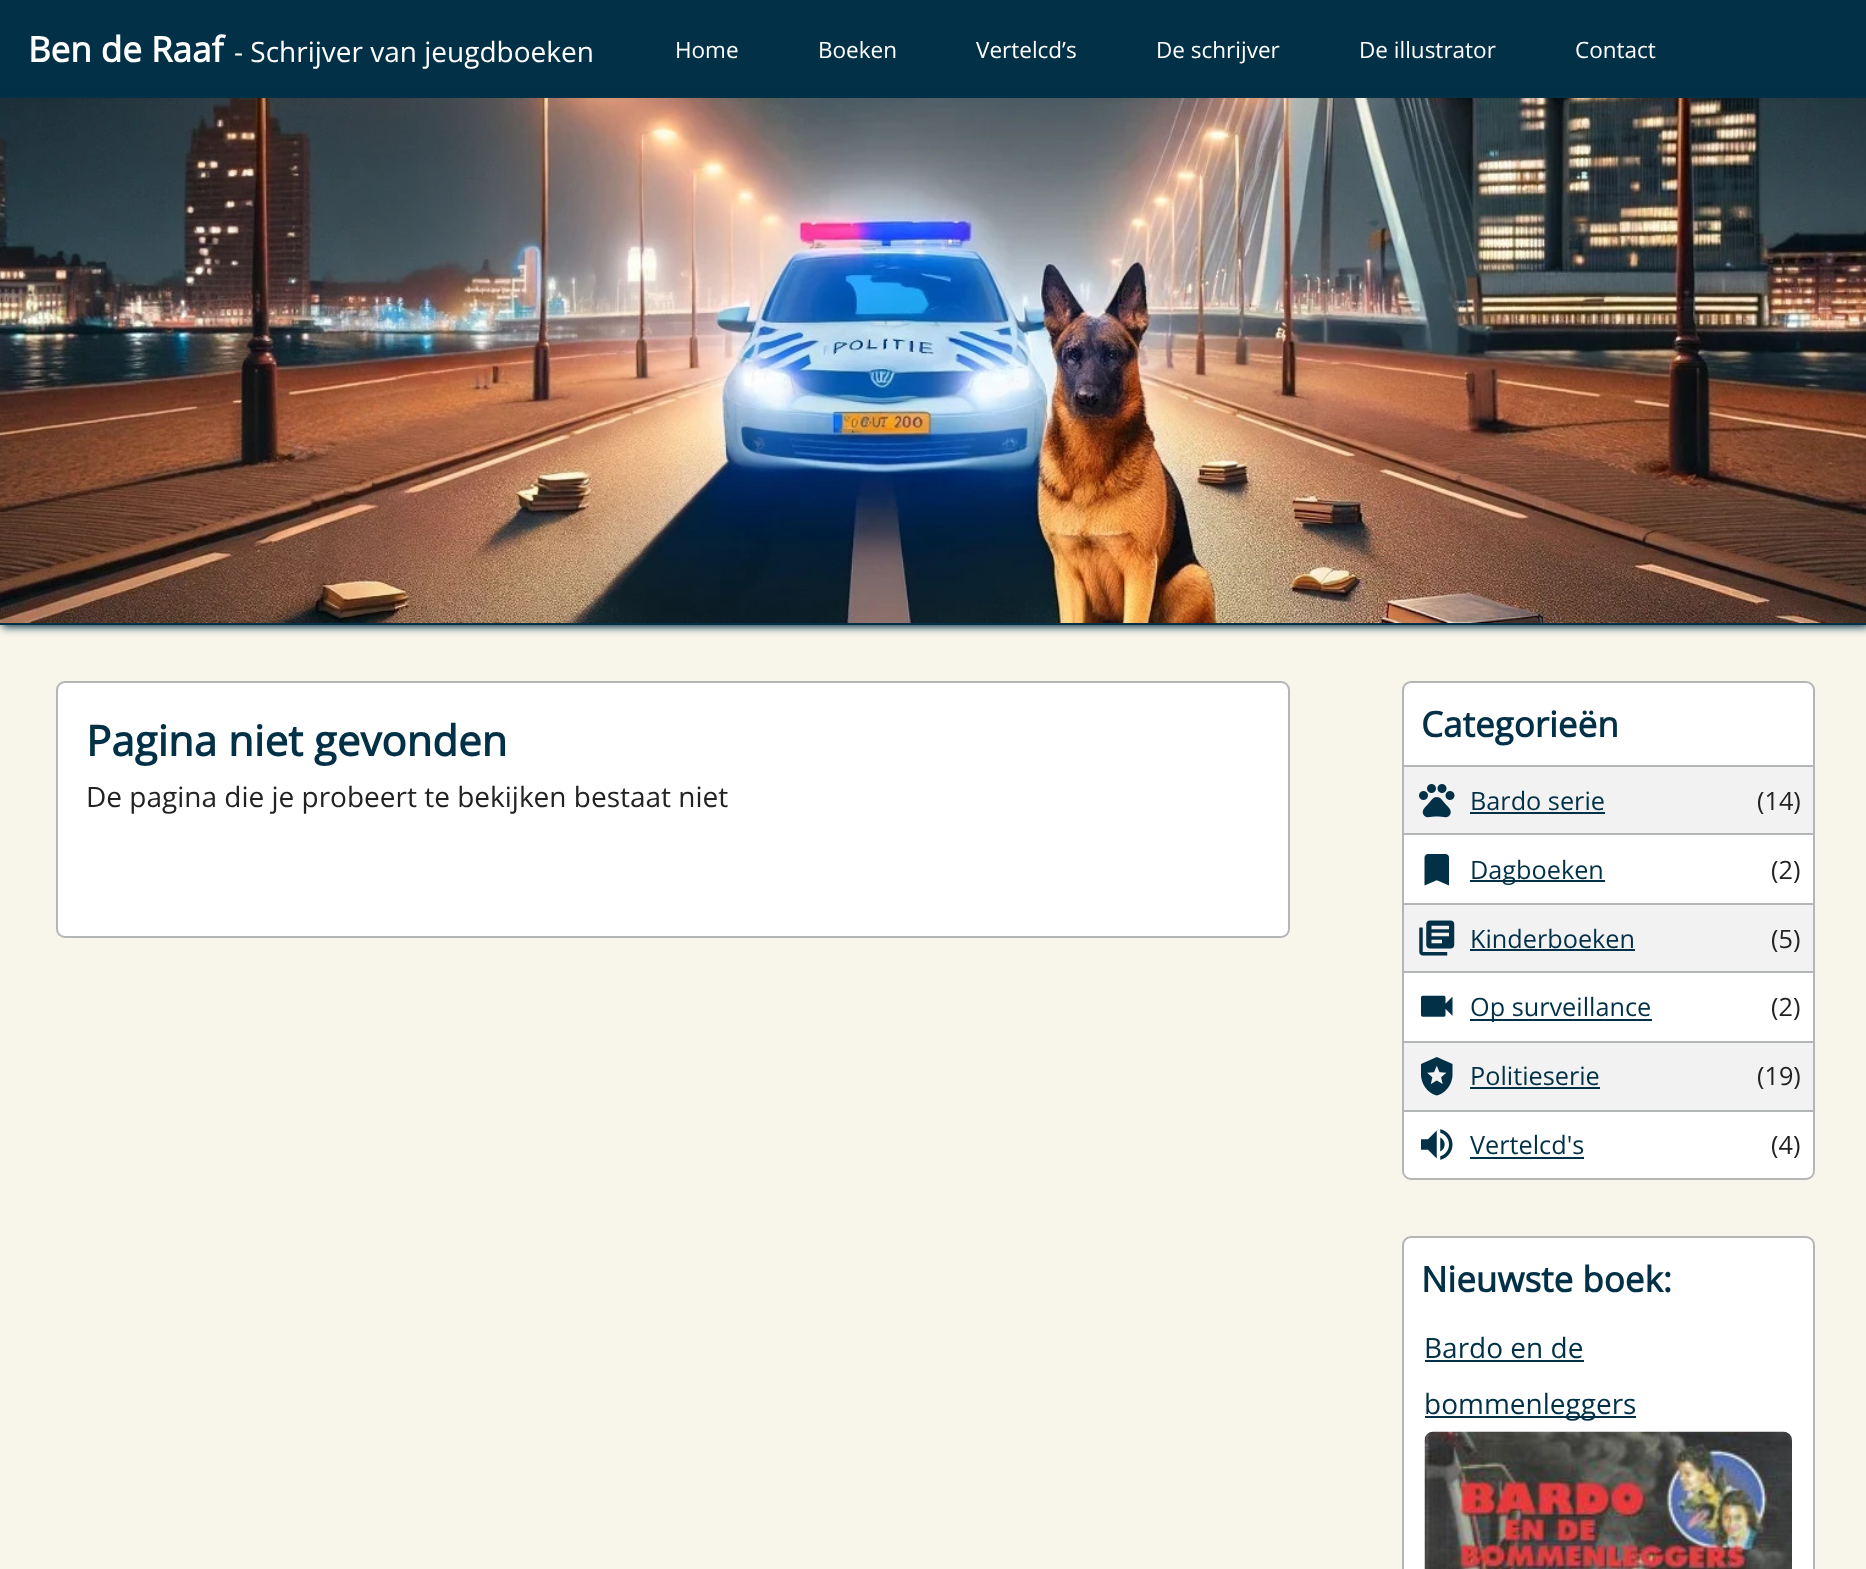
async function draw(canvas) {
  canvas.width = 1866;
  canvas.height = 1569;
  const ctx = canvas.getContext('2d');
  ctx.miterLimit = 4;
  ctx.fontKerning = 'normal';
  function label(s, x, y, font, color) {
    ctx.font = font;
    ctx.fillStyle = color;
    ctx.fillText(s, x, y);
  }
  function rect(x, y, w, h, color) {
    ctx.fillStyle = color;
    ctx.fillRect(x, y, w, h);
  }
  async function image(src, x, y, w, h) {
    const img = new Image();
    img.src = src;
    await img.decode();
    ctx.drawImage(img, x, y, w, h);
  }

  rect(0, 0, 1866, 1569, '#f8f5ea');
  rect(0, 0, 1866, 98, '#023047');
  label('Ben de Raaf', 28, 62, 'bold 35px Open Sans', '#fff');
  label('- Schrijver van jeugdboeken', 234, 62, '28px Open Sans', '#fff');
  label('Home', 675, 58, '22.5px Open Sans', '#fff');
  label('Boeken', 818, 58, '22.5px Open Sans', '#fff');
  label('Vertelcd’s', 976, 58, '22.5px Open Sans', '#fff');
  label('De schrijver', 1156, 58, '22.5px Open Sans', '#fff');
  label('De illustrator', 1359, 58, '22.5px Open Sans', '#fff');
  label('Contact', 1575, 58, '22.5px Open Sans', '#fff');
  ctx.fillStyle = '#023047';
  ctx.filter = 'blur(4.5px)';
  ctx.beginPath();
  ctx.rect(2, 100, 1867, 527);
  ctx.fill();
  ctx.filter = 'none';
  await image('assets/img1.png', 0, 98, 1866, 525);
  rect(0, 623, 1866, 2, '#023047');
  ctx.fillStyle = '#fff';
  ctx.beginPath();
  ctx.roundRect(57, 682, 1232, 255, 8);
  ctx.fill();
  ctx.strokeStyle = '#b3b6b7';
  ctx.lineWidth = 2;
  ctx.stroke();
  label('Pagina niet gevonden', 86, 756, 'bold 42px Open Sans', '#023047');
  label('De pagina die je probeert te bekijken bestaat niet', 86, 807, '28px Open Sans', '#222');
  ctx.fillStyle = '#fff';
  ctx.beginPath();
  ctx.roundRect(1403, 682, 411, 497, 8);
  ctx.fill();
  ctx.stroke();
  label('Categorieën', 1421, 737, 'bold 35px Open Sans', '#023047');
  rect(1404, 767, 409, 66, '#f2f2f2');
  rect(1404, 765, 409, 2, '#b3b6b7');
  await image('assets/img2.png', 1419, 784, 36, 34);
  label('Bardo serie', 1470, 810, '25.25px Open Sans', '#023047');
  rect(1470, 812, 135, 2, '#023047');
  label('(14)', 1757, 810, '25.25px Open Sans', '#222');
  rect(1404, 833, 409, 2, '#b3b6b7');
  await image('assets/img3.png', 1424, 854, 25, 32);
  rect(1470, 880, 135, 2, '#023047');
  label('Dagboeken', 1470, 879, '25.25px Open Sans', '#023047');
  label('(2)', 1771, 879, '25.25px Open Sans', '#222');
  rect(1404, 905, 409, 66, '#f2f2f2');
  rect(1404, 903, 409, 2, '#b3b6b7');
  await image('assets/img4.png', 1419, 920, 36, 36);
  label('Kinderboeken', 1470, 948, '25.25px Open Sans', '#023047');
  rect(1470, 949, 165, 2, '#023047');
  label('(5)', 1771, 948, '25.25px Open Sans', '#222');
  rect(1404, 971, 409, 2, '#b3b6b7');
  await image('assets/img5.png', 1421, 995, 32, 22);
  rect(1470, 1019, 182, 2, '#023047');
  label('Op surveillance', 1470, 1016, '25.25px Open Sans', '#023047');
  label('(2)', 1771, 1016, '25.25px Open Sans', '#222');
  rect(1404, 1043, 409, 67, '#f2f2f2');
  rect(1404, 1041, 409, 2, '#b3b6b7');
  await image('assets/img6.png', 1421, 1057, 32, 39);
  label('Politieserie', 1470, 1085, '25.25px Open Sans', '#023047');
  rect(1470, 1087, 130, 2, '#023047');
  label('(19)', 1757, 1085, '25.25px Open Sans', '#222');
  rect(1404, 1110, 409, 2, '#b3b6b7');
  await image('assets/img7.png', 1421, 1129, 32, 31);
  label('Vertelcd\'s', 1470, 1154, '25.25px Open Sans', '#023047');
  rect(1470, 1157, 114, 2, '#023047');
  label('(4)', 1771, 1154, '25.25px Open Sans', '#222');
  ctx.fillStyle = '#fff';
  ctx.beginPath();
  ctx.roundRect(1403, 1237, 411, 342, 8);
  ctx.fill();
  ctx.stroke();
  label('Nieuwste boek:', 1421, 1292, 'bold 35px Open Sans', '#023047');
  label('Bardo en de', 1424, 1358, '28px Open Sans', '#023047');
  rect(1425, 1360, 159, 2, '#023047');
  rect(1425, 1416, 211, 2, '#023047');
  label('bommenleggers', 1424, 1414, '28px Open Sans', '#023047');
  await image('assets/img8.png', 1424, 1431, 368, 138);
}

draw(document.querySelector('canvas'));
